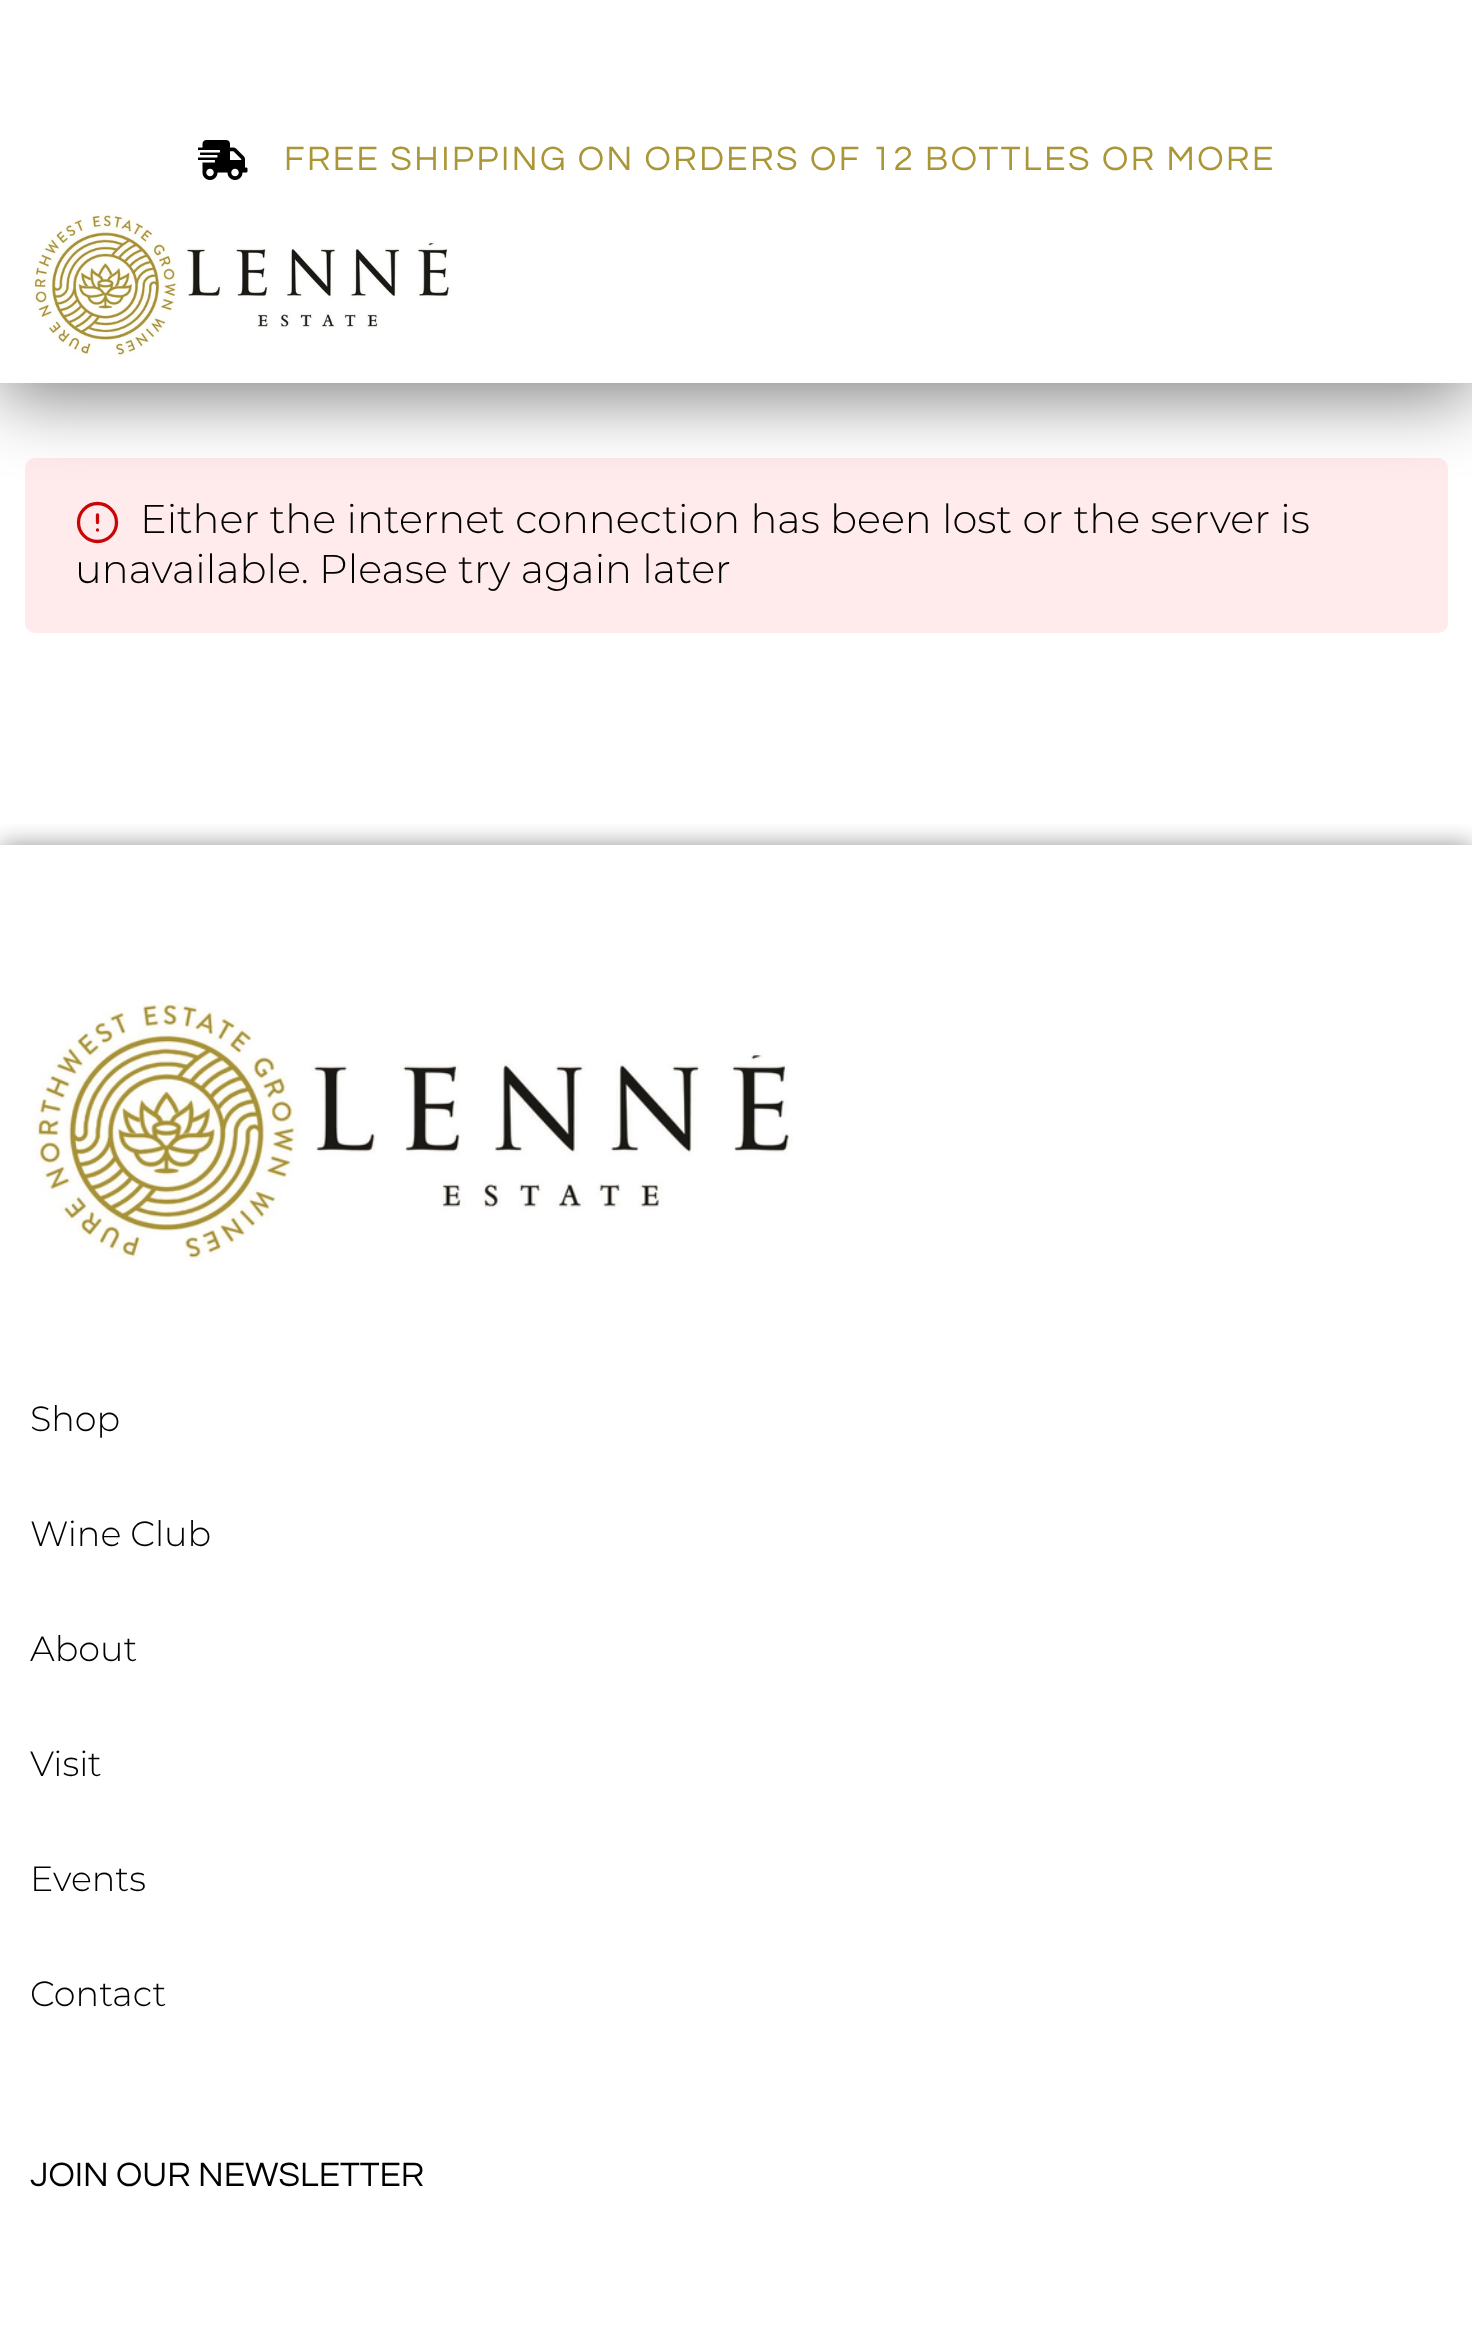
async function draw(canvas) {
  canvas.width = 1472;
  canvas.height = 2344;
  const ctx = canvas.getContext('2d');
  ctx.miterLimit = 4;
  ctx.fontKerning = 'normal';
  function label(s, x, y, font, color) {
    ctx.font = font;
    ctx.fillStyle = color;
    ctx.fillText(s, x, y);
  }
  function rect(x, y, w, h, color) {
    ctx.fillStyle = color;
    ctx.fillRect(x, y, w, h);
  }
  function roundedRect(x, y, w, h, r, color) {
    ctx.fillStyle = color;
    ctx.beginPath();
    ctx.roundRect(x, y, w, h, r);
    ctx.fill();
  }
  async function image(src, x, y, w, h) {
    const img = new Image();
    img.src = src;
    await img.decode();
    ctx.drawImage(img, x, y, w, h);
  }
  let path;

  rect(0, 0, 1472, 2344, '#fff');
  roundedRect(25, 458, 1423, 175, 10, '#ffebeb');
  ctx.beginPath();
  ctx.arc(97.5, 522.5, 19, 0, 2 * Math.PI);
  ctx.strokeStyle = '#ca0505';
  ctx.lineWidth = 3.3;
  ctx.stroke();
  ctx.fillStyle = '#00000085';
  ctx.filter = 'blur(37.5px)';
  ctx.beginPath();
  ctx.rect(0, 13, 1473, 382);
  ctx.fill();
  ctx.filter = 'none';
  rect(0, 0, 1472, 383, '#fff');
  await image('assets/img1.png', 33, 213, 418, 143);
  await image('assets/img2.png', 198, 140, 50, 40);
  ctx.letterSpacing = '2.5px';
  label('FREE SHIPPING ON ORDERS OF 12 BOTTLES OR MORE', 284, 170, '35px Questrial', '#aa9637');
  ctx.letterSpacing = '0px';
  label('Either the internet connection has been lost or the server is', 140, 533, '300 40px Montserrat', '#000');
  path = new Path2D('M97.5 515V522.5M97.5 530H97.5');
  ctx.lineCap = 'round';
  ctx.lineJoin = 'round';
  ctx.stroke(path);
  label('unavailable. Please try again later', 75, 583, '300 40px Montserrat', '#000');
  ctx.save();
  ctx.beginPath();
  ctx.rect(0, 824, 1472, 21);
  ctx.clip();
  ctx.fillStyle = '#0000006b';
  ctx.filter = 'blur(12.5px)';
  ctx.beginPath();
  ctx.rect(0, 845, 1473, 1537);
  ctx.fill();
  ctx.filter = 'none';
  ctx.restore();
  await image('assets/img3.png', 30, 998, 763, 263);
  label('Shop', 30, 1431, '300 35px Montserrat', '#000');
  label('Wine Club', 30, 1546, '300 35px Montserrat', '#000');
  label('About', 30, 1661, '300 35px Montserrat', '#000');
  label('Visit', 30, 1776, '300 35px Montserrat', '#000');
  label('Events', 30, 1891, '300 35px Montserrat', '#000');
  label('Contact', 30, 2006, '300 35px Montserrat', '#000');
  label('JOIN OUR NEWSLETTER', 30, 2186, '35px Questrial', '#000');
}

draw(document.querySelector('canvas'));
